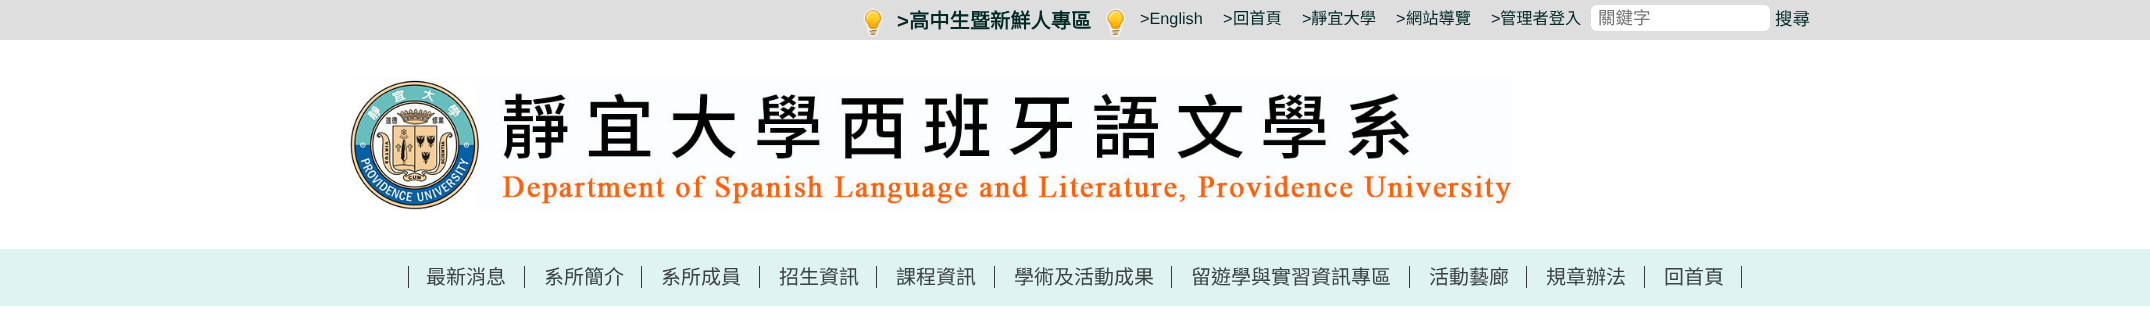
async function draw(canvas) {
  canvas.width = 2150;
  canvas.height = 326;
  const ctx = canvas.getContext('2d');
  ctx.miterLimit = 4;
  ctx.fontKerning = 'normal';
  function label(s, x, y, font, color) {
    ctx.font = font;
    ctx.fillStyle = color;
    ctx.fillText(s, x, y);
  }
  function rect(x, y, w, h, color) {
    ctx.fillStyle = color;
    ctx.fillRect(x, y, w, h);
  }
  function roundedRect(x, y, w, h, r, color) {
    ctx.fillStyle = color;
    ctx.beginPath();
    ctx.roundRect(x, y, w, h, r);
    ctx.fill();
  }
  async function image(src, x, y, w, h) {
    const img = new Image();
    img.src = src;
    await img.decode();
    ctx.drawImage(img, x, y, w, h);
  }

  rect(0, 0, 2150, 326, '#fff');
  rect(0, 0, 2150, 40, '#dedede');
  await image('assets/img1.png', 863, 8, 20, 29);
  label('>', 897, 28, 'bold 20.25px Liberation Sans', '#012a27');
  label('高中生暨新鮮人專區', 909, 28, 'bold 20.25px Noto Sans CJK TC', '#012a27');
  await image('assets/img2.png', 1106, 8, 19, 29);
  label('>English', 1140, 24, '16.25px Liberation Sans', '#012a27');
  label('>', 1223, 24, '16.25px Liberation Sans', '#012a27');
  label('回首頁', 1233, 24, '16.25px Noto Sans CJK TC', '#012a27');
  label('>', 1302, 24, '16.25px Liberation Sans', '#012a27');
  label('靜宜大學', 1311, 24, '16.25px Noto Sans CJK TC', '#012a27');
  label('>', 1396, 24, '16.25px Liberation Sans', '#012a27');
  label('網站導覽', 1406, 24, '16.25px Noto Sans CJK TC', '#012a27');
  label('>', 1491, 24, '16.25px Liberation Sans', '#012a27');
  label('管理者登入', 1500, 24, '16.25px Noto Sans CJK TC', '#012a27');
  roundedRect(1591, 5, 179, 26, 6, '#fff');
  label('關鍵字', 1598, 24, '17.5px Noto Sans CJK TC', '#777');
  label('搜尋', 1775, 25, '17.5px Noto Sans CJK TC', '#012a27');
  rect(0, 249, 2150, 57, '#dff3f2');
  rect(408, 266, 1, 22, '#383e3e');
  label('最新消息', 426, 284, '20px Noto Sans CJK TC', '#3d4343');
  rect(524, 266, 1, 22, '#383e3e');
  label('系所簡介', 544, 284, '20px Noto Sans CJK TC', '#3d4343');
  rect(641, 266, 1, 22, '#383e3e');
  label('系所成員', 661, 284, '20px Noto Sans CJK TC', '#3d4343');
  rect(759, 266, 1, 22, '#383e3e');
  label('招生資訊', 779, 284, '20px Noto Sans CJK TC', '#3d4343');
  rect(876, 266, 1, 22, '#383e3e');
  label('課程資訊', 896, 284, '20px Noto Sans CJK TC', '#3d4343');
  rect(994, 266, 1, 22, '#383e3e');
  label('學術及活動成果', 1014, 284, '20px Noto Sans CJK TC', '#3d4343');
  rect(1171, 266, 1, 22, '#383e3e');
  label('留遊學與實習資訊專區', 1191, 284, '20px Noto Sans CJK TC', '#3d4343');
  rect(1409, 266, 1, 22, '#383e3e');
  label('活動藝廊', 1429, 284, '20px Noto Sans CJK TC', '#3d4343');
  rect(1526, 266, 1, 22, '#383e3e');
  label('規章辦法', 1546, 284, '20px Noto Sans CJK TC', '#3d4343');
  rect(1644, 266, 1, 22, '#383e3e');
  label('回首頁', 1664, 284, '20px Noto Sans CJK TC', '#3d4343');
  rect(1741, 266, 1, 22, '#383e3e');
  await image('assets/img3.png', 350, 78, 1163, 132);
}

draw(document.querySelector('canvas'));
